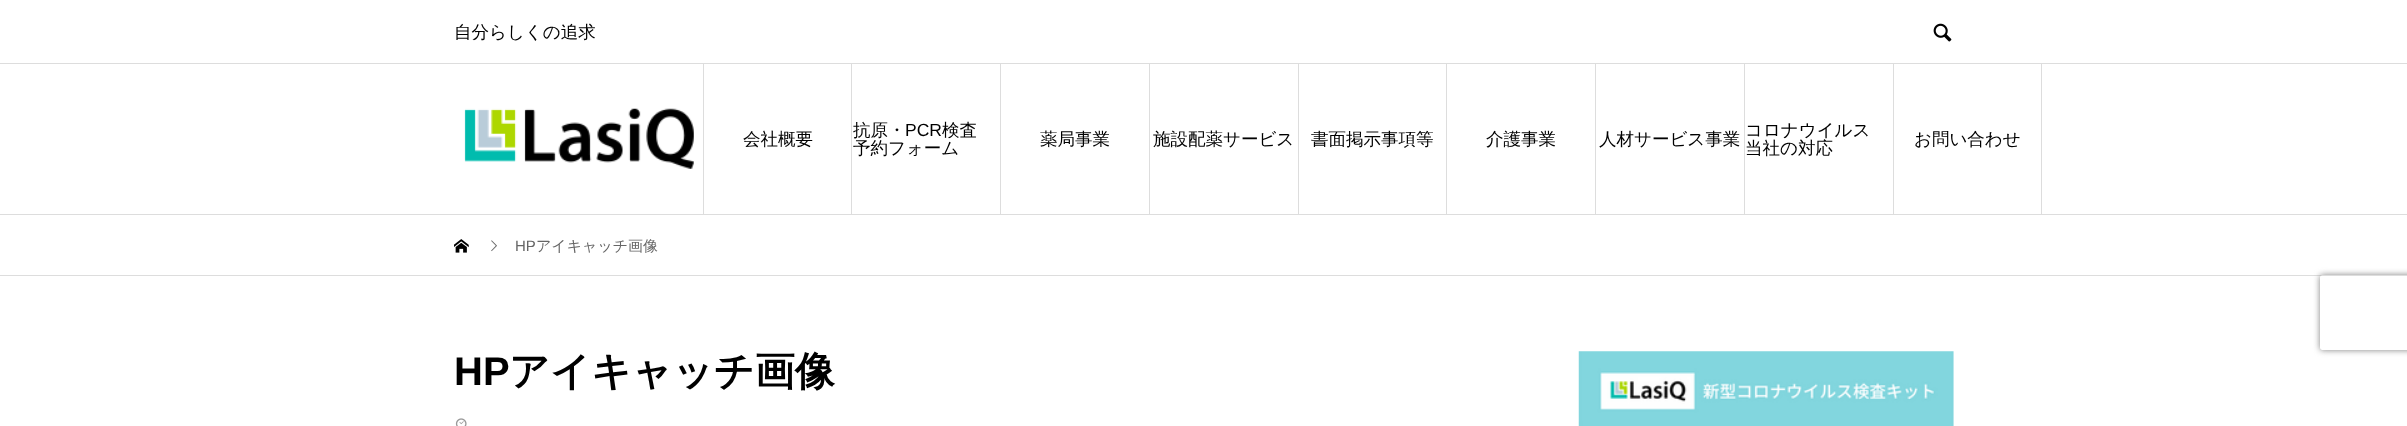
async function draw(canvas) {
  canvas.width = 2407;
  canvas.height = 426;
  const ctx = canvas.getContext('2d');
  ctx.miterLimit = 4;
  ctx.fontKerning = 'normal';
  function label(s, x, y, font, color) {
    ctx.font = font;
    ctx.fillStyle = color;
    ctx.fillText(s, x, y);
  }
  function rect(x, y, w, h, color) {
    ctx.fillStyle = color;
    ctx.fillRect(x, y, w, h);
  }
  async function image(src, x, y, w, h) {
    const img = new Image();
    img.src = src;
    await img.decode();
    ctx.drawImage(img, x, y, w, h);
  }
  let path;

  rect(0, 0, 2407, 426, '#fff');
  rect(0, 63, 2407, 1, '#ddd');
  label('自分らしくの追求', 454, 38, '500 17.5px WenQuanYi Zen Hei', '#000');
  await image('assets/img1.png', 1933, 23, 19, 19);
  await image('assets/img2.png', 464, 108, 230, 61);
  rect(851, 64, 1, 150, '#ddd');
  rect(703, 64, 1, 150, '#ddd');
  label('会社概要', 743, 145, '500 17.5px WenQuanYi Zen Hei', '#000');
  rect(1000, 64, 1, 150, '#ddd');
  label('抗原・', 853, 136, '500 17.5px WenQuanYi Zen Hei', '#000');
  label('PCR', 905, 136, '17.5px Liberation Sans', '#000');
  label('検査', 942, 136, '500 17.5px WenQuanYi Zen Hei', '#000');
  label('予約フォーム', 853, 154, '500 17.5px WenQuanYi Zen Hei', '#000');
  rect(1149, 64, 1, 150, '#ddd');
  label('薬局事業', 1040, 145, '500 17.5px WenQuanYi Zen Hei', '#000');
  rect(1298, 64, 1, 150, '#ddd');
  label('施設配薬サービス', 1153, 145, '500 17.5px WenQuanYi Zen Hei', '#000');
  rect(1446, 64, 1, 150, '#ddd');
  label('書面掲示事項等', 1311, 145, '500 17.5px WenQuanYi Zen Hei', '#000');
  rect(1595, 64, 1, 150, '#ddd');
  label('介護事業', 1486, 145, '500 17.5px WenQuanYi Zen Hei', '#000');
  rect(1744, 64, 1, 150, '#ddd');
  label('人材サービス事業', 1599, 145, '500 17.5px WenQuanYi Zen Hei', '#000');
  rect(1893, 64, 1, 150, '#ddd');
  label('コロナウイルス', 1745, 136, '500 17.5px WenQuanYi Zen Hei', '#000');
  label('当社の対応', 1745, 154, '500 17.5px WenQuanYi Zen Hei', '#000');
  rect(2041, 64, 1, 150, '#ddd');
  label('お問い合わせ', 1914, 145, '500 17.5px WenQuanYi Zen Hei', '#000');
  rect(0, 214, 2407, 1, '#ddd');
  rect(0, 275, 2407, 1, '#ddd');
  await image('assets/img3.png', 454, 239, 15, 14);
  await image('assets/img4.png', 491, 240, 6, 12);
  label('HP', 515, 251, '15px Liberation Sans', '#666');
  label('アイキャッチ画像', 536, 251, '500 15px WenQuanYi Zen Hei', '#666');
  label('HP', 454, 385, 'bold 40px Liberation Sans', '#000');
  label('アイキャッチ画像', 509, 385, 'bold 40px WenQuanYi Zen Hei', '#000');
  await image('assets/img5.png', 455, 418, 12, 8);
  await image('assets/img6.png', 1578, 351, 376, 75);
  ctx.save();
  path = new Path2D('M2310 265H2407V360H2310ZM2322.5 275H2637.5C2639 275 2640 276 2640 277.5V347.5C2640 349 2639 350 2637.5 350H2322.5C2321 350 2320 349 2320 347.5V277.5C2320 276 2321 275 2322.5 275Z');
  ctx.clip(path, 'evenodd');
  ctx.fillStyle = '#808080';
  ctx.filter = 'blur(3px)';
  ctx.beginPath();
  ctx.roundRect(2320, 275, 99, 75, 2.5);
  ctx.fill();
  ctx.filter = 'none';
  ctx.restore();
}

draw(document.querySelector('canvas'));
